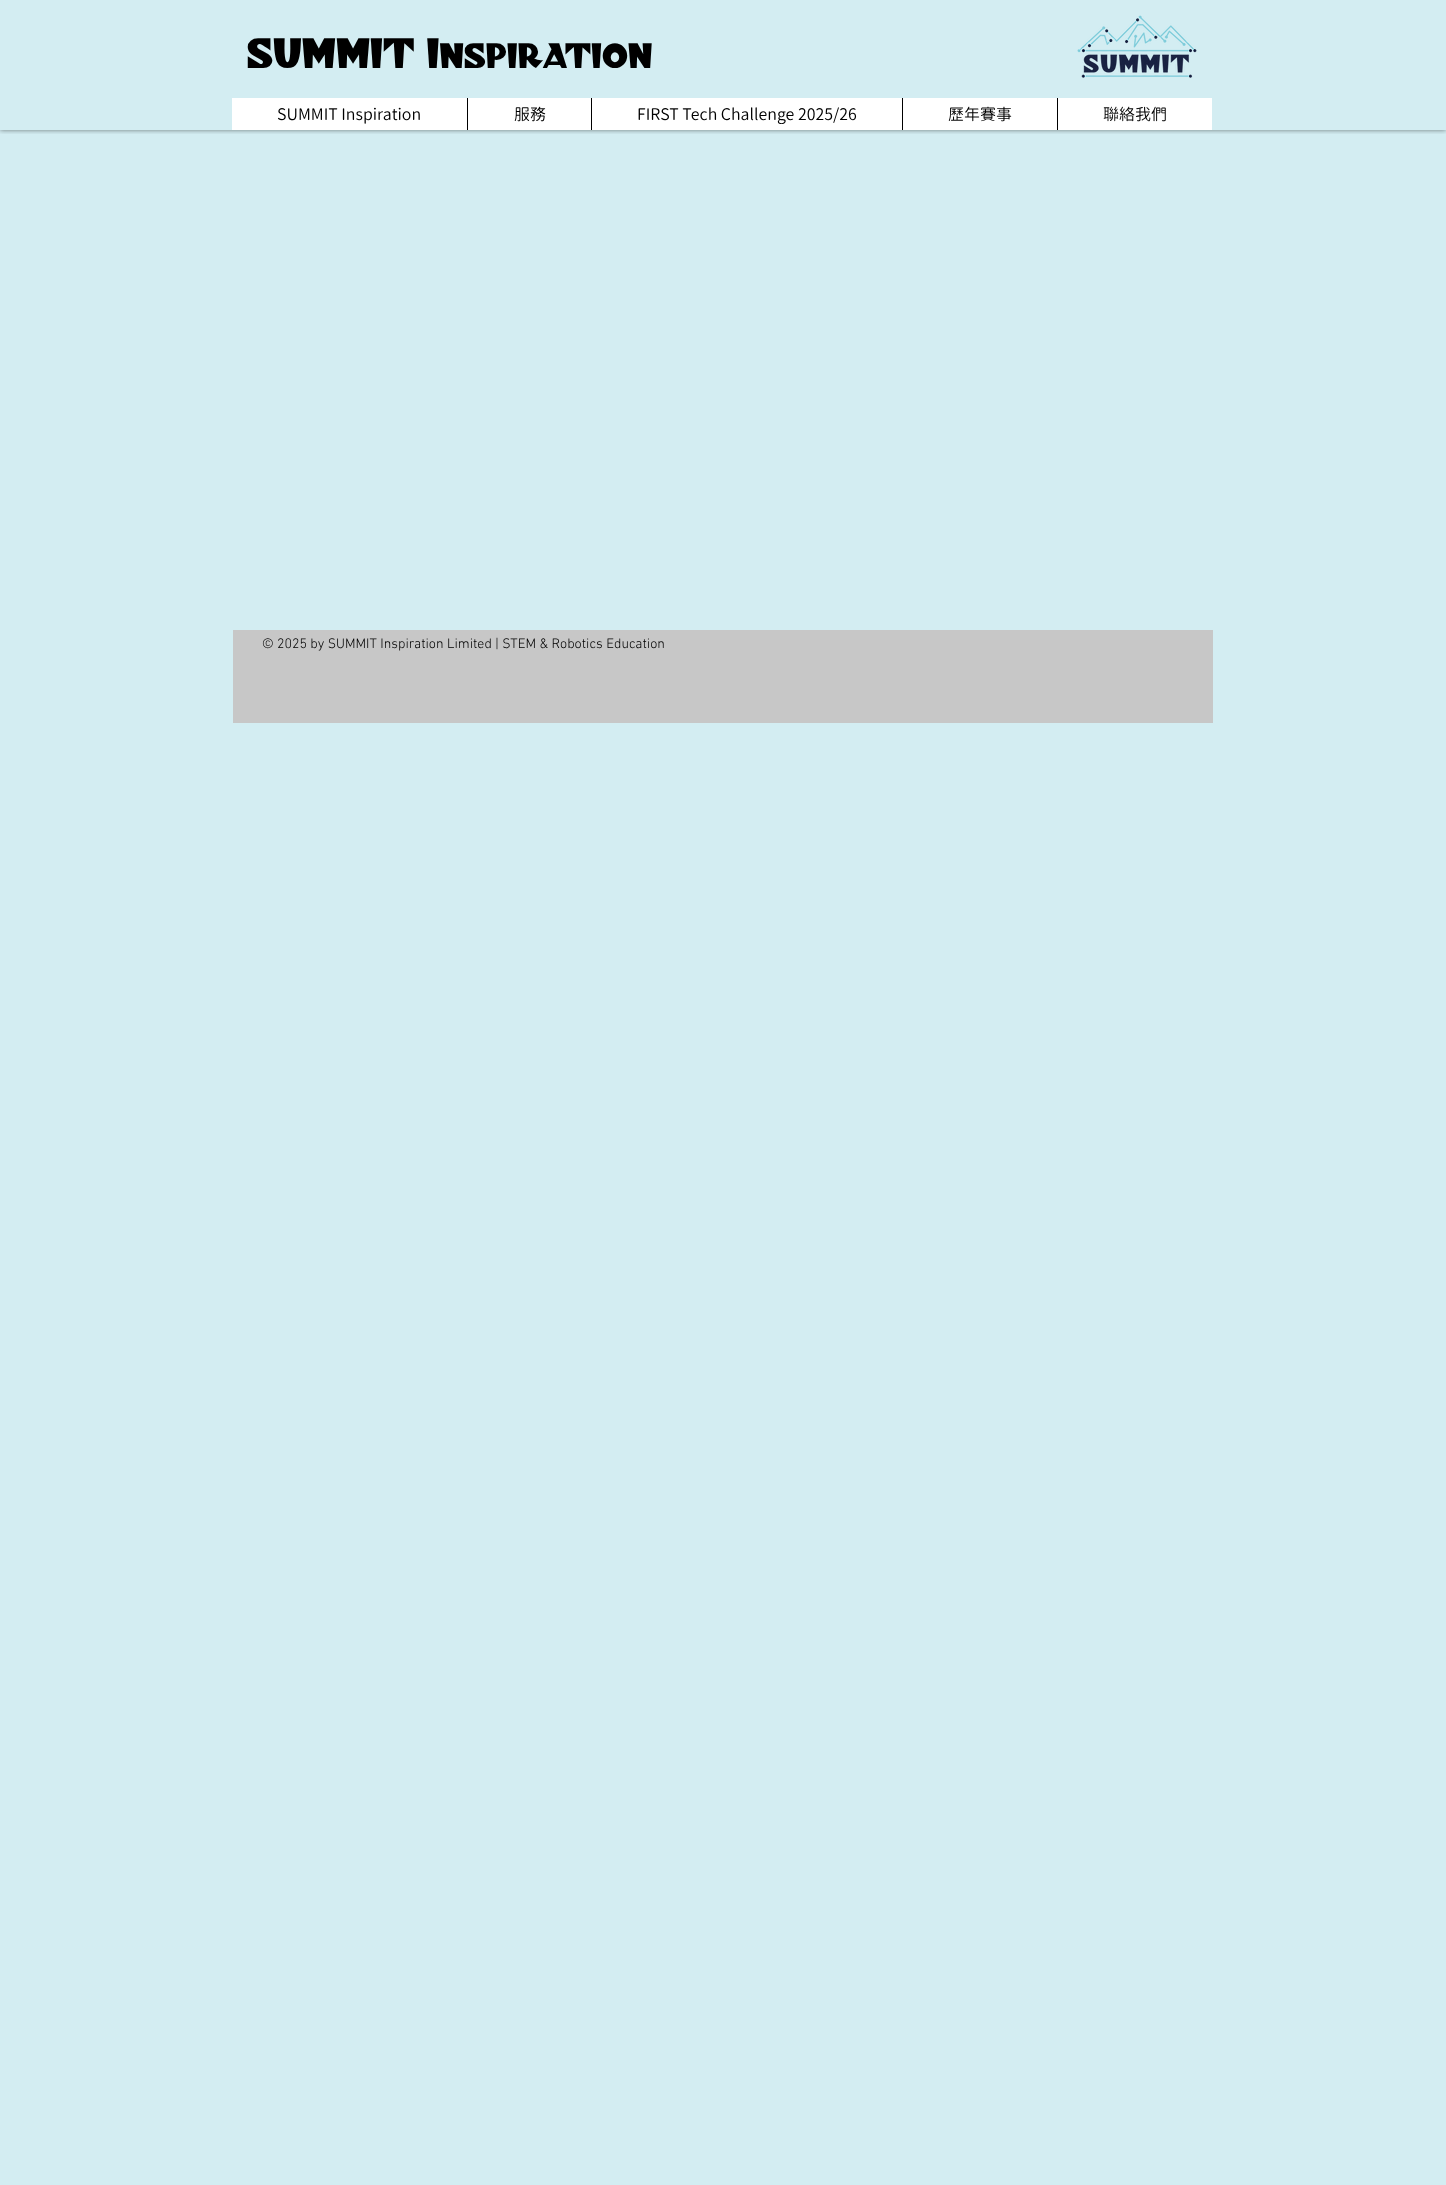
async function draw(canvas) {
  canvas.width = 1446;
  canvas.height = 2185;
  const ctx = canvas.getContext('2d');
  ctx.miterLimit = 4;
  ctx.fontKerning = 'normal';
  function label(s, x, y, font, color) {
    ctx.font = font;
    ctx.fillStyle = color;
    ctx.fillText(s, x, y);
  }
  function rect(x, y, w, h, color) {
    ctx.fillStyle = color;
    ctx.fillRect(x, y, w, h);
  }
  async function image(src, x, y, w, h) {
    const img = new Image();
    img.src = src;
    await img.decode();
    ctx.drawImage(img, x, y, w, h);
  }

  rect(0, 0, 1446, 2185, '#d3edf2');
  ctx.save();
  ctx.beginPath();
  ctx.rect(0, 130, 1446, 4);
  ctx.clip();
  ctx.fillStyle = '#00000080';
  ctx.filter = 'blur(2.5px)';
  ctx.beginPath();
  ctx.rect(0, 0, 1446, 130);
  ctx.fill();
  ctx.filter = 'none';
  ctx.restore();
  label('SUMMIT Inspiration', 247, 68, '40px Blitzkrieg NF', '#000');
  await image('assets/img1.png', 1077, 15, 120, 63);
  rect(232, 98, 980, 32, '#fff');
  label('SUMMIT Inspiration', 277, 120, '300 16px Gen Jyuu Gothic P', '#000');
  rect(467, 98, 1, 32, '#000');
  label('服務', 514, 120, '300 16px Gen Jyuu Gothic P', '#000');
  rect(591, 98, 1, 32, '#000');
  label('FIRST Tech Challenge 2025/26', 637, 120, '300 16px Gen Jyuu Gothic P', '#000');
  rect(902, 98, 1, 32, '#000');
  label('歷年賽事', 948, 120, '300 16px Gen Jyuu Gothic P', '#000');
  rect(1057, 98, 1, 32, '#000');
  label('聯絡我們', 1103, 120, '300 16px Gen Jyuu Gothic P', '#000');
  rect(233, 630, 980, 93, '#c7c7c7');
  label('© 2025 by SUMMIT Inspiration Limited | STEM & Robotics Education', 262, 648, '300 14px "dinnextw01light"', '#000');
}

draw(document.querySelector('canvas'));
